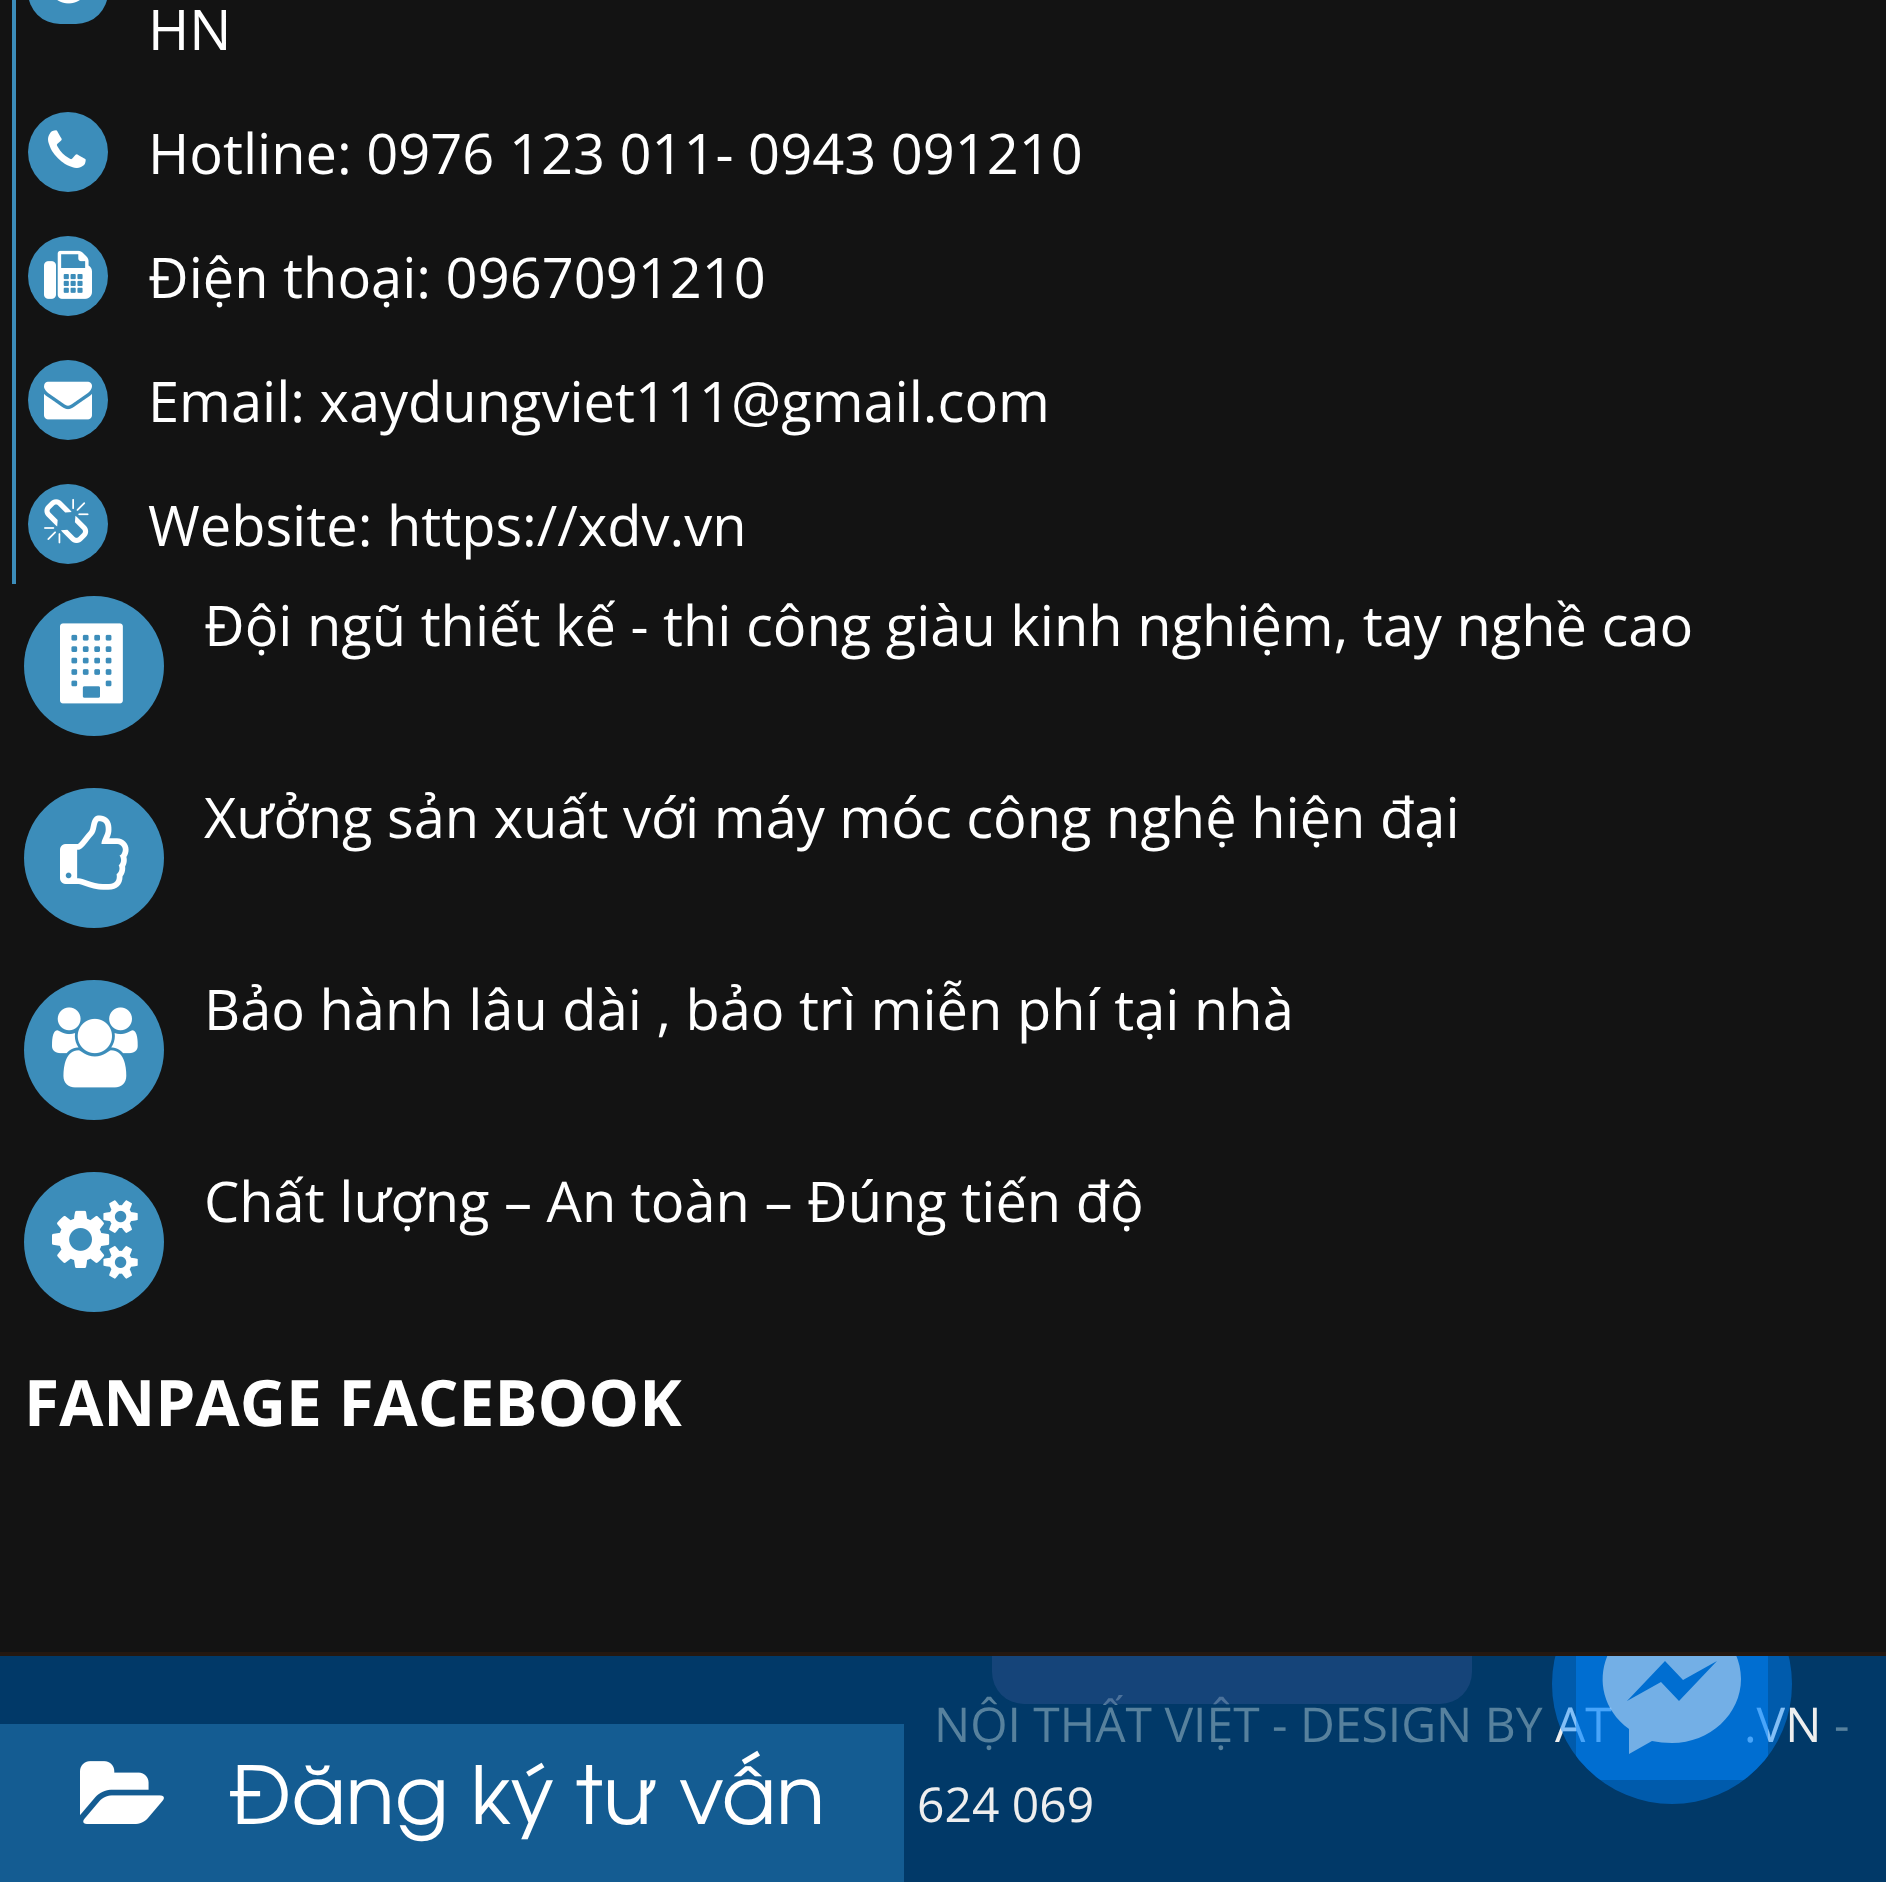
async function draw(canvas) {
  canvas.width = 1886;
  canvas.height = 1882;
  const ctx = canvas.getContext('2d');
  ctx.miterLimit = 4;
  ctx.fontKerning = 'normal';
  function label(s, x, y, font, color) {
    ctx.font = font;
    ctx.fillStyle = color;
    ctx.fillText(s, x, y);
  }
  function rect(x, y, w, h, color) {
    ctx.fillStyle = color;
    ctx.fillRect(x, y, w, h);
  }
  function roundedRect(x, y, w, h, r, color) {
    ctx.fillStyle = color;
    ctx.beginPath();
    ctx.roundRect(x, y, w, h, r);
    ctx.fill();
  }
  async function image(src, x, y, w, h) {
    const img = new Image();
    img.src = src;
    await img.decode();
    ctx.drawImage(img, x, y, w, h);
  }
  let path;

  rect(0, 0, 1886, 1882, '#013968');
  label('AT', 1555, 1742, '48px Open Sans', '#eee');
  label('.VN', 1744, 1742, '48px Open Sans', '#eee');
  ctx.fillStyle = '#0084ff73';
  ctx.beginPath();
  ctx.arc(1672, 1684, 120, 0, 2 * Math.PI);
  ctx.fill();
  ctx.save();
  ctx.beginPath();
  ctx.roundRect(1552, 1564, 240, 240, 120);
  ctx.clip();
  rect(1576, 1656, 192, 124, '#0084ff73');
  ctx.restore();
  ctx.fillStyle = '#ffffff73';
  path = new Path2D('M1672 1614C1608 1614 1577 1690 1629 1729V1754L1652 1741C1658 1742 1665 1743 1672 1743C1710 1743 1741 1714 1741 1679C1741 1643 1710 1614 1672 1614ZM1679 1701L1661 1682L1627 1701L1665 1661L1683 1680L1717 1661Z');
  ctx.fill(path);
  label('NỘI THẤT VIỆT - DESIGN BY', 934, 1742, '48px Open Sans', '#57819d');
  roundedRect(992, 1584, 480, 120, 32, '#3b59985c');
  rect(0, 0, 1886, 1652, '#363533');
  rect(0, 1652, 1886, 4, '#df6627');
  rect(0, 0, 1886, 1656, '#0f0f0fe6');
  rect(12, 0, 4, 584, '#3c8dba');
  roundedRect(28, -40, 80, 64, 40, '#3c8dba');
  await image('assets/img1.png', 57, 0, 23, 4);
  label('HN', 148, 50, '56px Open Sans', '#fff');
  ctx.fillStyle = '#3c8dba';
  ctx.beginPath();
  ctx.arc(68, 152, 40, 0, 2 * Math.PI);
  ctx.fill();
  await image('assets/img2.png', 48, 130, 38, 38);
  label('Hotline: 0976 123 011- 0943 091210', 148, 174, '56px Open Sans', '#fff');
  ctx.fillStyle = '#3c8dba';
  ctx.beginPath();
  ctx.arc(68, 276, 40, 0, 2 * Math.PI);
  ctx.fill();
  await image('assets/img3.png', 44, 250, 48, 49);
  label('Điện thoại: 0967091210', 148, 298, '56px Open Sans', '#fff');
  ctx.fillStyle = '#3c8dba';
  ctx.beginPath();
  ctx.arc(68, 400, 40, 0, 2 * Math.PI);
  ctx.fill();
  await image('assets/img4.png', 44, 381, 48, 39);
  label('Email: xaydungviet111@gmail.com', 148, 422, '56px Open Sans', '#fff');
  ctx.fillStyle = '#3c8dba';
  ctx.beginPath();
  ctx.arc(68, 524, 40, 0, 2 * Math.PI);
  ctx.fill();
  await image('assets/img5.png', 44, 498, 45, 46);
  label('Website: https://xdv.vn', 148, 546, '56px Open Sans', '#fff');
  ctx.fillStyle = '#3c8dba';
  ctx.beginPath();
  ctx.arc(94, 666, 70, 0, 2 * Math.PI);
  ctx.fill();
  await image('assets/img6.png', 60, 623, 63, 81);
  label('Đội ngũ thiết kế - thi công giàu kinh nghiệm, tay nghề cao', 204, 646, '56px Open Sans', '#fff');
  ctx.fillStyle = '#3c8dba';
  ctx.beginPath();
  ctx.arc(94, 858, 70, 0, 2 * Math.PI);
  ctx.fill();
  await image('assets/img7.png', 60, 815, 69, 75);
  label('Xưởng sản xuất với máy móc công nghệ hiện đại', 204, 838, '56px Open Sans', '#fff');
  ctx.fillStyle = '#3c8dba';
  ctx.beginPath();
  ctx.arc(94, 1050, 70, 0, 2 * Math.PI);
  ctx.fill();
  await image('assets/img8.png', 52, 1007, 86, 81);
  label('Bảo hành lâu dài , bảo trì miễn phí tại nhà', 204, 1030, '56px Open Sans', '#fff');
  ctx.fillStyle = '#3c8dba';
  ctx.beginPath();
  ctx.arc(94, 1242, 70, 0, 2 * Math.PI);
  ctx.fill();
  await image('assets/img9.png', 52, 1200, 86, 79);
  label('Chất lượng – An toàn – Đúng tiến độ', 204, 1222, '56px Open Sans', '#fff');
  label('FANPAGE FACEBOOK', 24, 1426, 'bold 64px Open Sans', '#fff');
  label('-', 1834, 1742, '48px Open Sans', '#57819d');
  label('624 069', 917, 1822, '48px Open Sans', '#eee');
  rect(0, 1724, 904, 158, '#145c92');
  await image('assets/img10.png', 80, 1761, 84, 63);
  label('Đăng ký tư vấn', 228, 1824, '80px TeX Gyre Adventor', '#fff');
}

draw(document.querySelector('canvas'));
